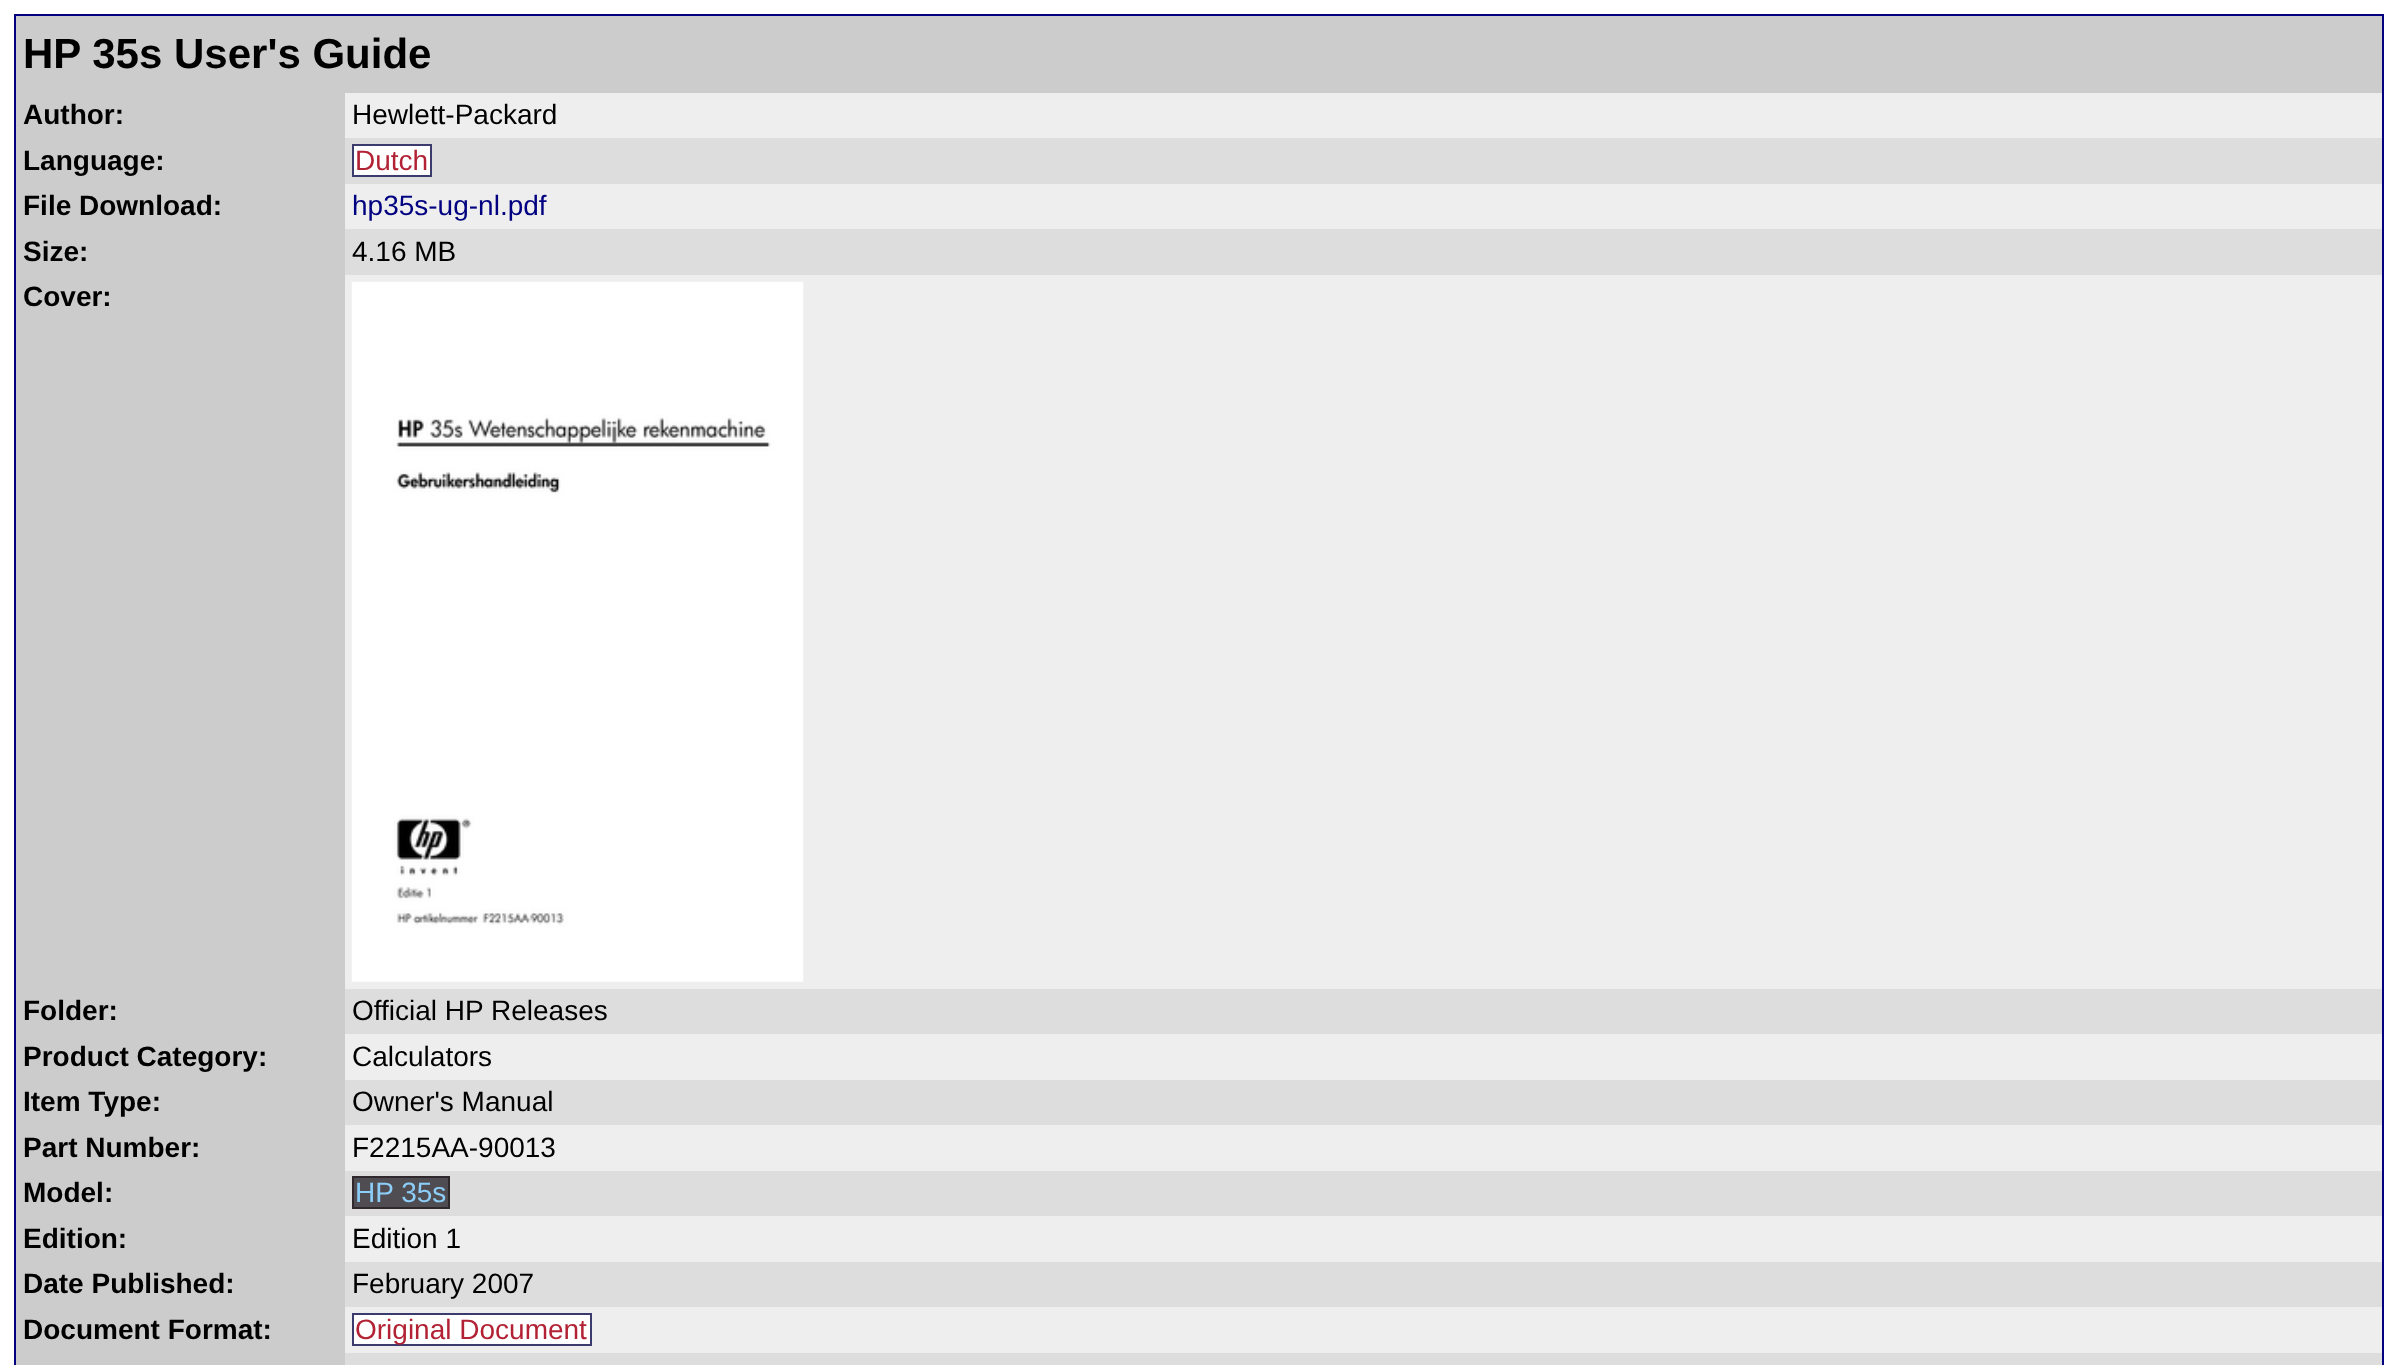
async function draw(canvas) {
  canvas.width = 2396;
  canvas.height = 1365;
  const ctx = canvas.getContext('2d');
  ctx.miterLimit = 4;
  ctx.fontKerning = 'normal';
  function label(s, x, y, font, color) {
    ctx.font = font;
    ctx.fillStyle = color;
    ctx.fillText(s, x, y);
  }
  function rect(x, y, w, h, color) {
    ctx.fillStyle = color;
    ctx.fillRect(x, y, w, h);
  }
  async function image(src, x, y, w, h) {
    const img = new Image();
    img.src = src;
    await img.decode();
    ctx.drawImage(img, x, y, w, h);
  }

  rect(0, 0, 2396, 1365, '#fff');
  rect(14, 14, 2370, 1351, '#000080');
  rect(345, 93, 2037, 1260, '#eee');
  rect(16, 16, 2366, 77, '#ccc');
  label('HP 35s User\'s Guide', 23, 68, 'bold 42px Liberation Sans', '#000');
  rect(16, 93, 329, 1272, '#ccc');
  label('Author:', 23, 124, 'bold 28px Liberation Sans', '#000');
  label('Hewlett-Packard', 352, 124, '28px Liberation Sans', '#000');
  label('Language:', 23, 170, 'bold 28px Liberation Sans', '#000');
  rect(345, 138, 2037, 46, '#ddd');
  ctx.fillStyle = '#fff';
  ctx.beginPath();
  ctx.rect(353, 145, 78, 31);
  ctx.fill();
  ctx.strokeStyle = '#3c3b6e';
  ctx.lineWidth = 2;
  ctx.stroke();
  label('Dutch', 355, 170, '28px Liberation Sans', '#b22234');
  label('File Download:', 23, 215, 'bold 28px Liberation Sans', '#000');
  label('hp35s-ug-nl.pdf', 352, 215, '28px Liberation Sans', '#000080');
  label('Size:', 23, 261, 'bold 28px Liberation Sans', '#000');
  rect(345, 229, 2037, 46, '#ddd');
  label('4.16 MB', 352, 261, '28px Liberation Sans', '#000');
  label('Cover:', 23, 306, 'bold 28px Liberation Sans', '#000');
  await image('assets/img1.png', 351, 281, 453, 701);
  label('Folder:', 23, 1020, 'bold 28px Liberation Sans', '#000');
  rect(345, 989, 2037, 45, '#ddd');
  label('Official HP Releases', 352, 1020, '28px Liberation Sans', '#000');
  label('Product Category:', 23, 1066, 'bold 28px Liberation Sans', '#000');
  label('Calculators', 352, 1066, '28px Liberation Sans', '#000');
  label('Item Type:', 23, 1111, 'bold 28px Liberation Sans', '#000');
  rect(345, 1080, 2037, 45, '#ddd');
  label('Owner\'s Manual', 352, 1111, '28px Liberation Sans', '#000');
  label('Part Number:', 23, 1157, 'bold 28px Liberation Sans', '#000');
  label('F2215AA-90013', 352, 1157, '28px Liberation Sans', '#000');
  label('Model:', 23, 1202, 'bold 28px Liberation Sans', '#000');
  rect(345, 1171, 2037, 45, '#ddd');
  ctx.fillStyle = '#504d52';
  ctx.beginPath();
  ctx.rect(353, 1177, 96, 31);
  ctx.fill();
  ctx.strokeStyle = '#2f292d';
  ctx.stroke();
  label('HP 35s', 355, 1202, '28px Liberation Sans', '#8dcef9');
  label('Edition:', 23, 1248, 'bold 28px Liberation Sans', '#000');
  label('Edition 1', 352, 1248, '28px Liberation Sans', '#000');
  label('Date Published:', 23, 1293, 'bold 28px Liberation Sans', '#000');
  rect(345, 1262, 2037, 45, '#ddd');
  label('February 2007', 352, 1293, '28px Liberation Sans', '#000');
  label('Document Format:', 23, 1339, 'bold 28px Liberation Sans', '#000');
  ctx.fillStyle = '#fff';
  ctx.beginPath();
  ctx.rect(353, 1314, 238, 31);
  ctx.fill();
  ctx.strokeStyle = '#3c3b6e';
  ctx.stroke();
  label('Original Document', 355, 1339, '28px Liberation Sans', '#b22234');
  rect(345, 1353, 2037, 12, '#ddd');
}

draw(document.querySelector('canvas'));
